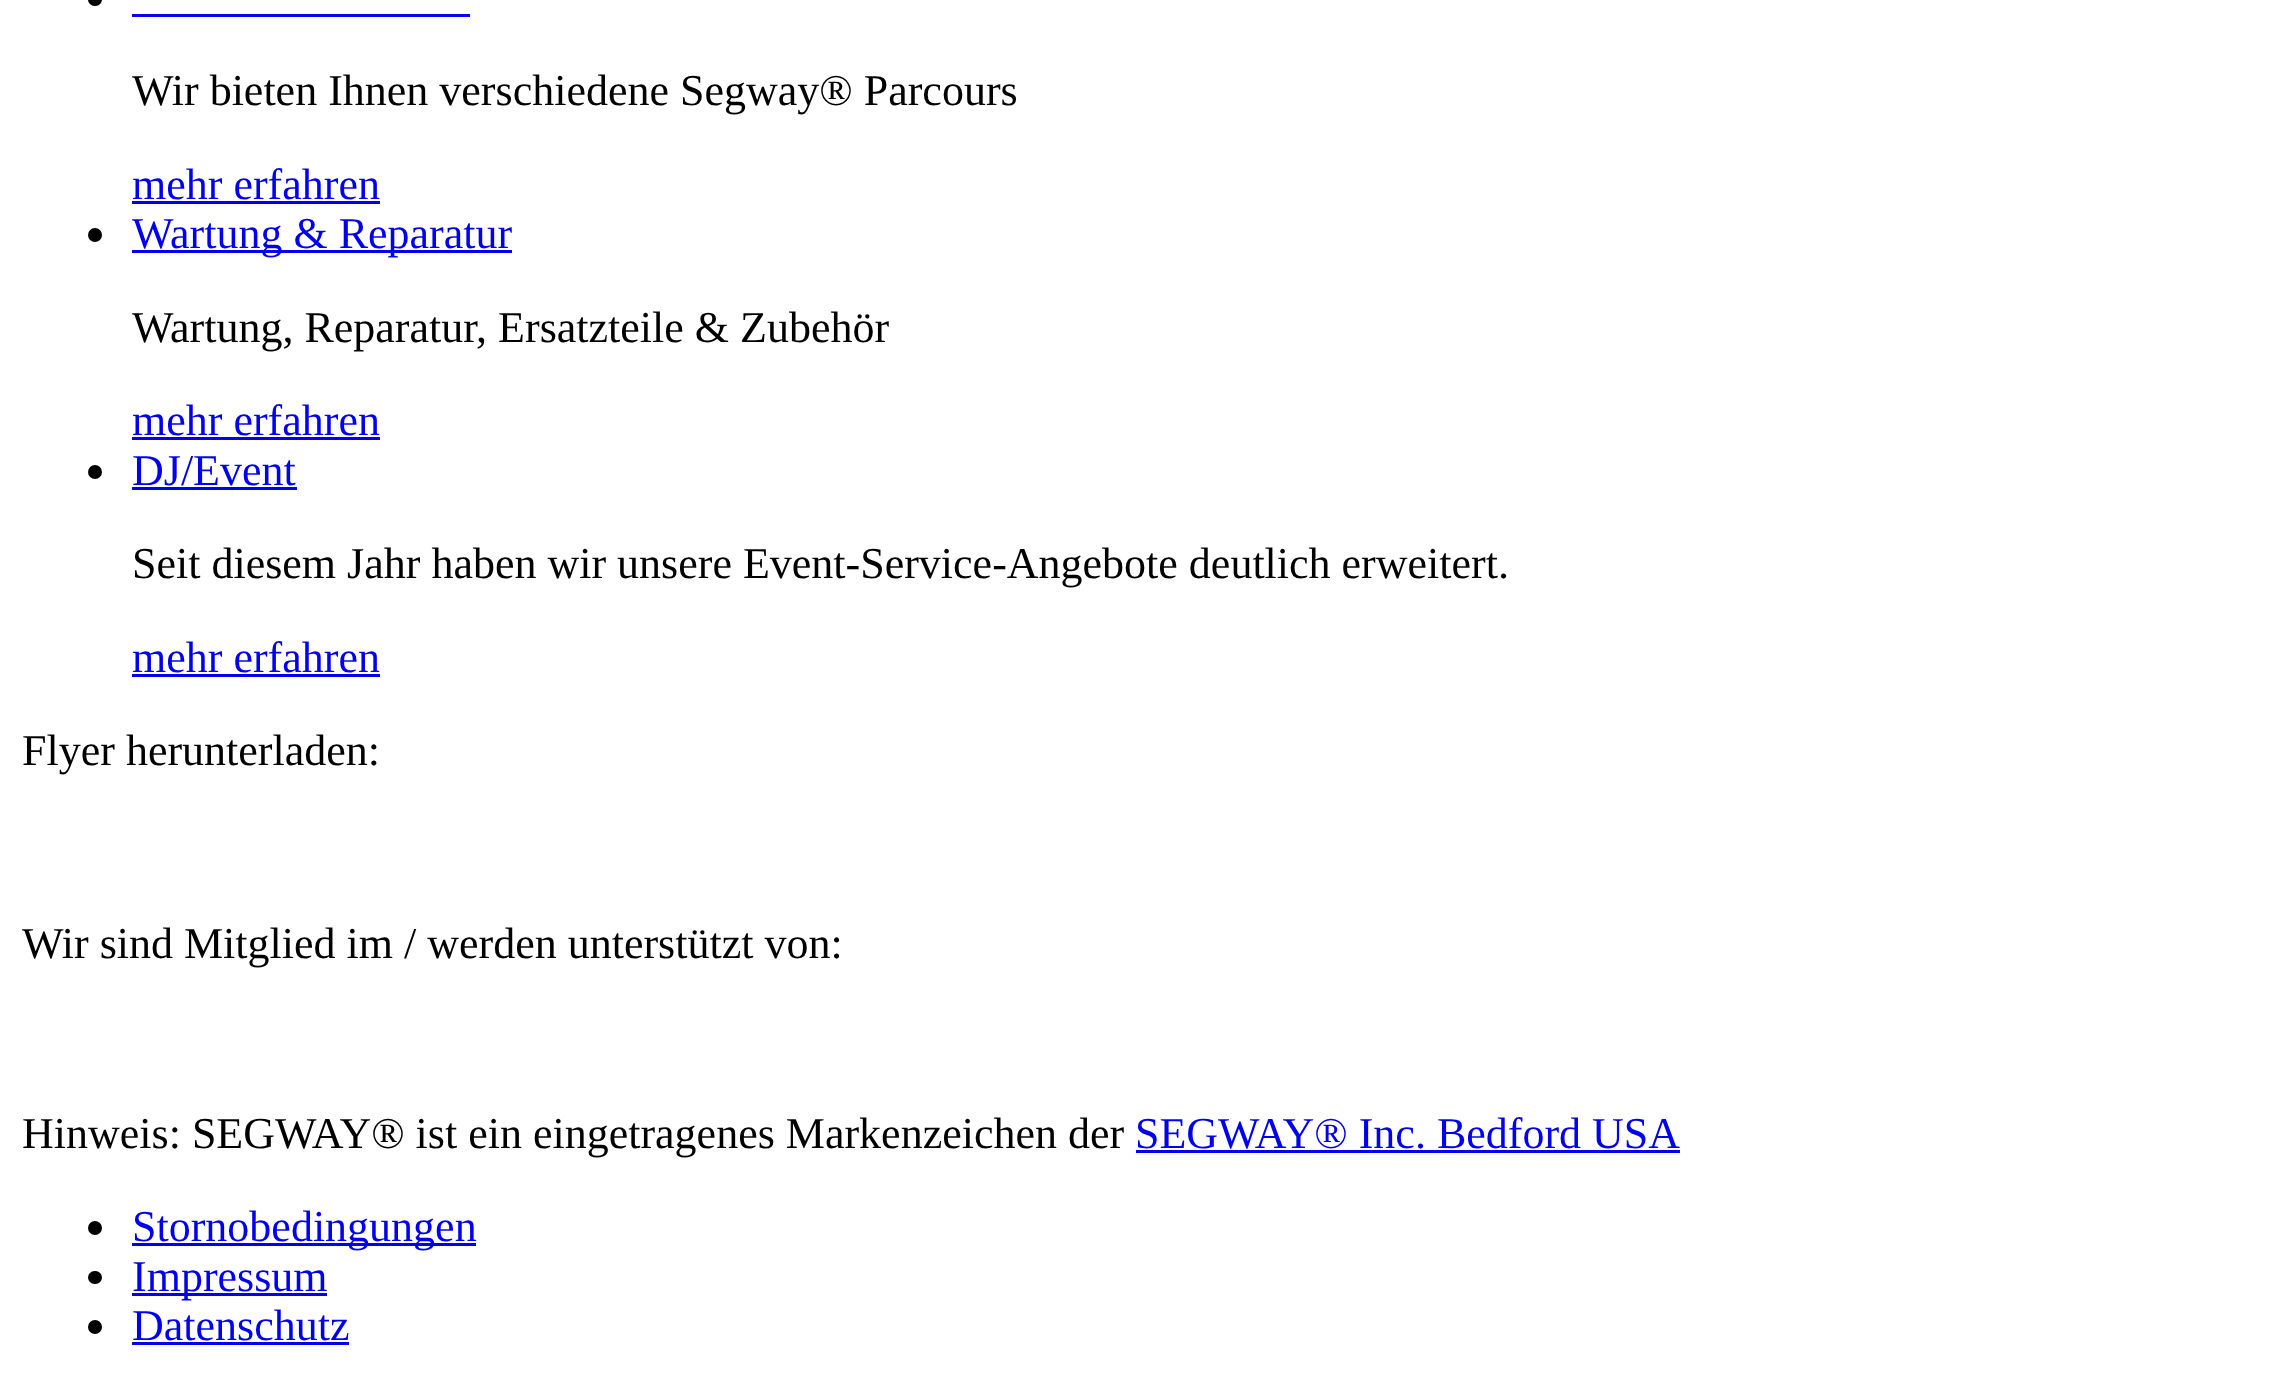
async function draw(canvas) {
  canvas.width = 2295;
  canvas.height = 1393;
  const ctx = canvas.getContext('2d');
  ctx.miterLimit = 4;
  ctx.fontKerning = 'normal';
  function label(s, x, y, font, color) {
    ctx.font = font;
    ctx.fillStyle = color;
    ctx.fillText(s, x, y);
  }
  function rect(x, y, w, h, color) {
    ctx.fillStyle = color;
    ctx.fillRect(x, y, w, h);
  }
  function roundedRect(x, y, w, h, r, color) {
    ctx.fillStyle = color;
    ctx.beginPath();
    ctx.roundRect(x, y, w, h, r);
    ctx.fill();
  }

  rect(0, 0, 2295, 1393, '#fff');
  roundedRect(88, -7, 14, 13, 7, '#000');
  rect(132, 14, 338, 3, '#00e');
  label('Wir bieten Ihnen verschiedene Segway® Parcours', 132, 105, '44px Liberation Serif', '#000');
  label('mehr erfahren', 132, 199, '44px Liberation Serif', '#00e');
  rect(132, 201, 248, 3, '#00e');
  ctx.fillStyle = '#000';
  ctx.beginPath();
  ctx.arc(95, 235, 7, 0, 2 * Math.PI);
  ctx.fill();
  rect(132, 250, 380, 3, '#00e');
  label('Wartung & Reparatur', 132, 248, '44px Liberation Serif', '#00e');
  label('Wartung, Reparatur, Ersatzteile & Zubehör', 132, 342, '44px Liberation Serif', '#000');
  label('mehr erfahren', 132, 435, '44px Liberation Serif', '#00e');
  rect(132, 437, 248, 3, '#00e');
  ctx.fillStyle = '#000';
  ctx.beginPath();
  ctx.arc(95, 472, 7, 0, 2 * Math.PI);
  ctx.fill();
  label('DJ/Event', 132, 485, '44px Liberation Serif', '#00e');
  rect(132, 487, 165, 3, '#00e');
  label('Seit diesem Jahr haben wir unsere Event-Service-Angebote deutlich erweitert.', 132, 578, '44px Liberation Serif', '#000');
  label('mehr erfahren', 132, 672, '44px Liberation Serif', '#00e');
  rect(132, 674, 248, 3, '#00e');
  label('Flyer herunterladen:', 22, 765, '44px Liberation Serif', '#000');
  label('Wir sind Mitglied im / werden unterstützt von:', 22, 958, '44px Liberation Serif', '#000');
  label('Hinweis: SEGWAY® ist ein eingetragenes Markenzeichen der', 22, 1148, '44px Liberation Serif', '#000');
  label('SEGWAY® Inc. Bedford USA', 1135, 1148, '44px Liberation Serif', '#00e');
  rect(1136, 1150, 544, 3, '#00e');
  ctx.fillStyle = '#000';
  ctx.beginPath();
  ctx.arc(95, 1228, 7, 0, 2 * Math.PI);
  ctx.fill();
  rect(132, 1243, 344, 3, '#00e');
  label('Stornobedingungen', 132, 1241, '44px Liberation Serif', '#00e');
  roundedRect(88, 1271, 14, 13, 6.5, '#000');
  rect(132, 1293, 195, 3, '#00e');
  label('Impressum', 132, 1291, '44px Liberation Serif', '#00e');
  ctx.fillStyle = '#000';
  ctx.beginPath();
  ctx.arc(95, 1327, 7, 0, 2 * Math.PI);
  ctx.fill();
  label('Datenschutz', 132, 1340, '44px Liberation Serif', '#00e');
  rect(132, 1342, 217, 3, '#00e');
}

draw(document.querySelector('canvas'));
